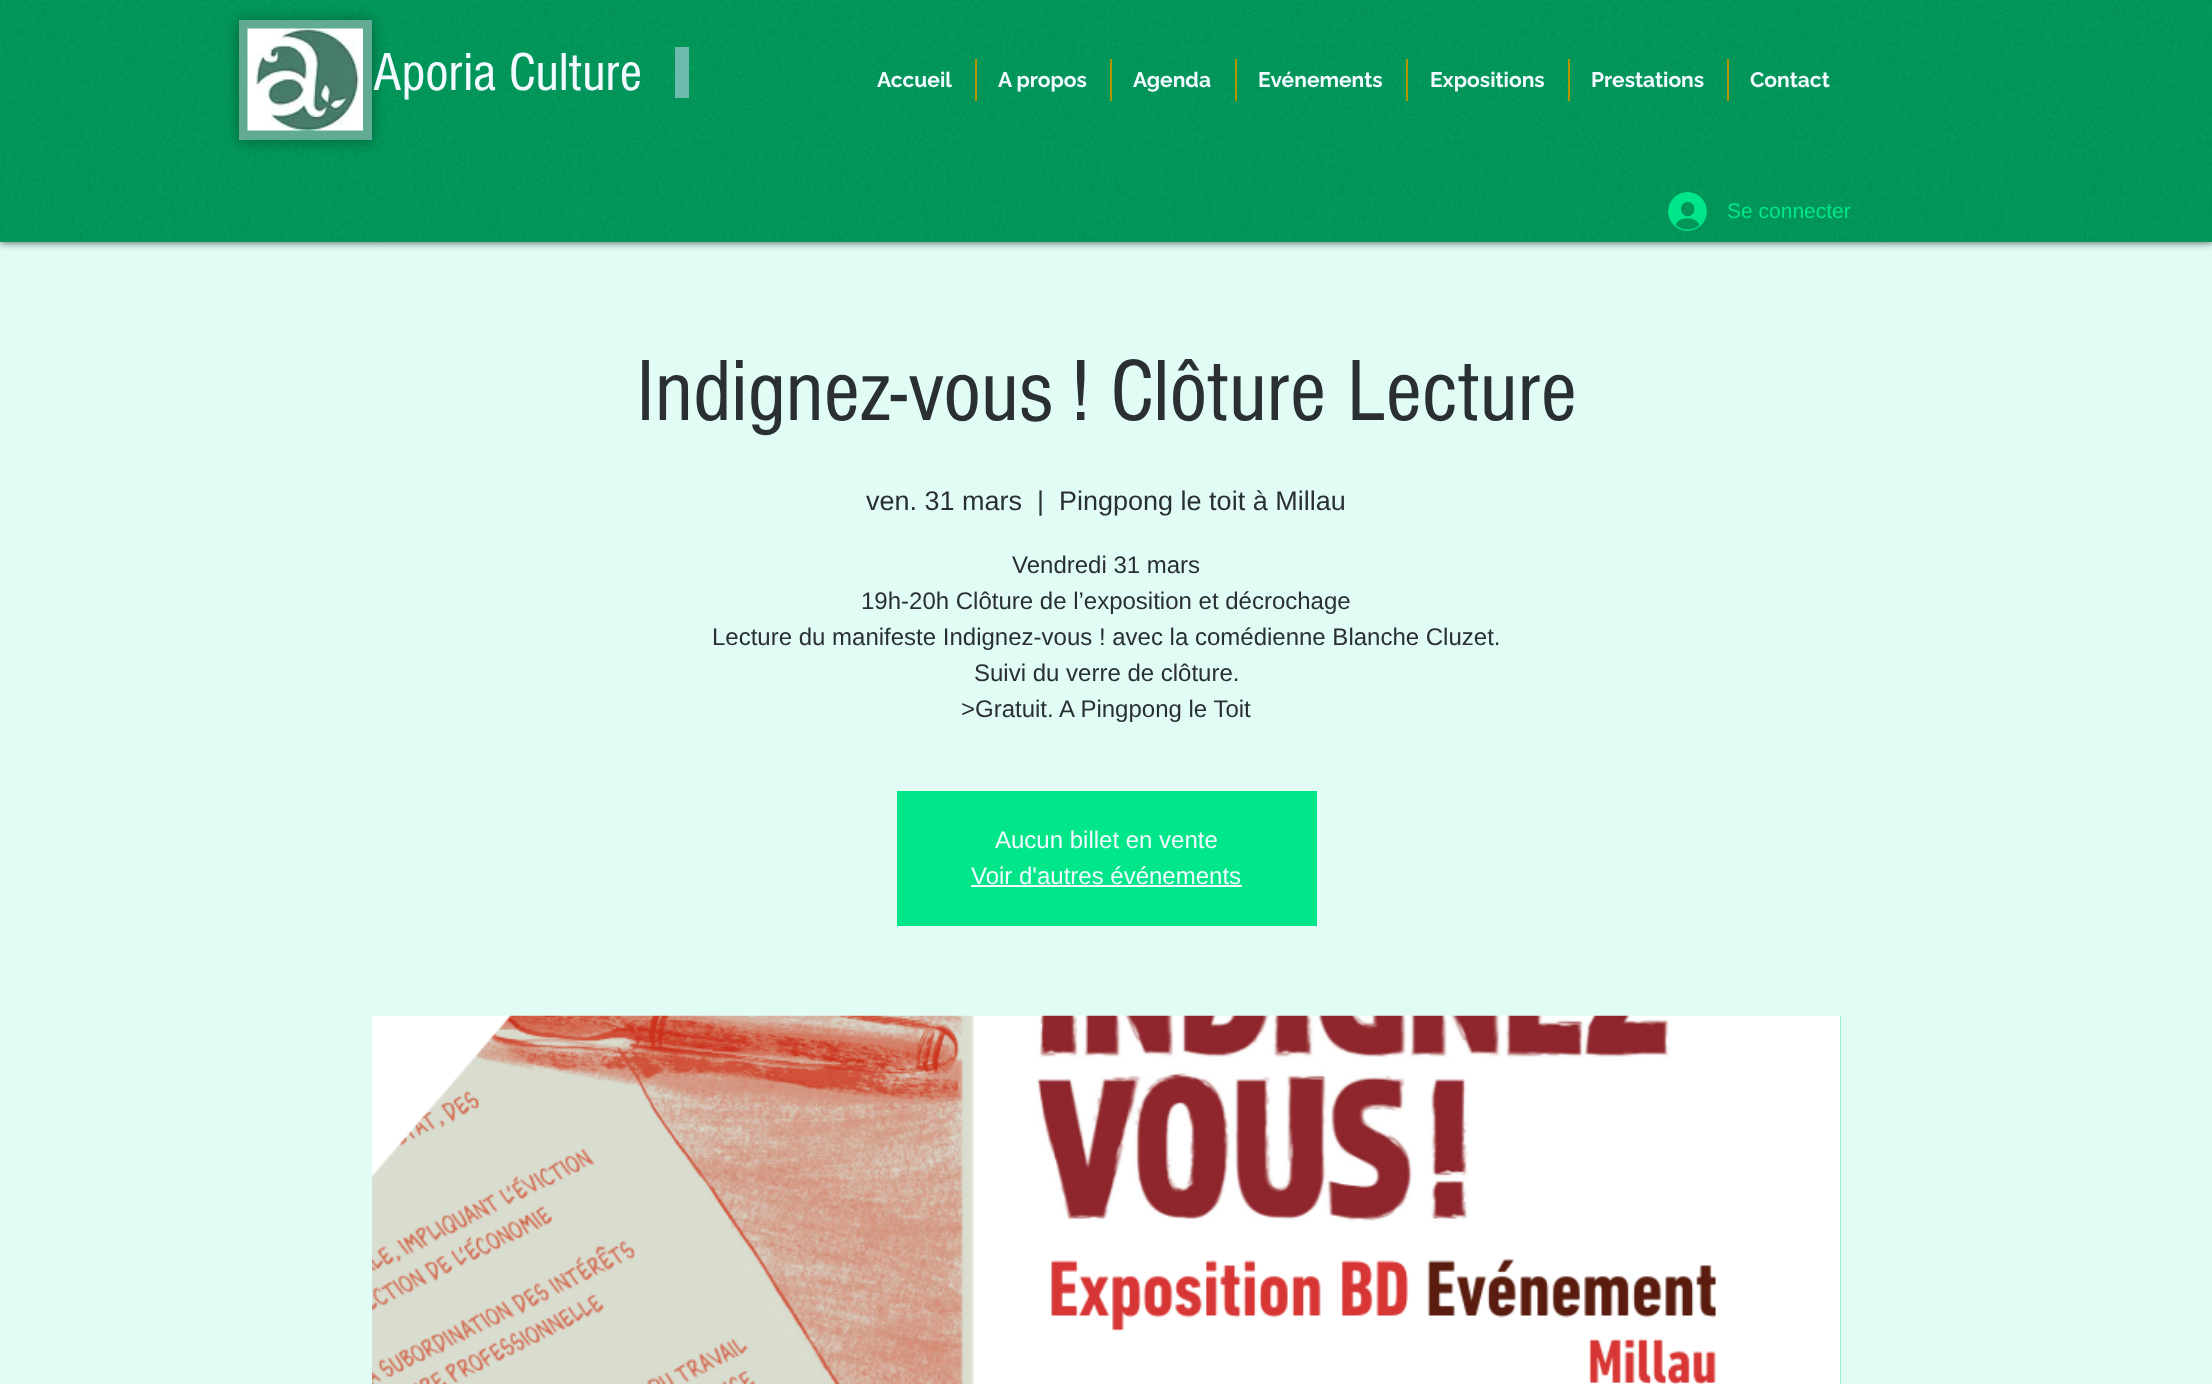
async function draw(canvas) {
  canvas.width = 2212;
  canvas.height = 1384;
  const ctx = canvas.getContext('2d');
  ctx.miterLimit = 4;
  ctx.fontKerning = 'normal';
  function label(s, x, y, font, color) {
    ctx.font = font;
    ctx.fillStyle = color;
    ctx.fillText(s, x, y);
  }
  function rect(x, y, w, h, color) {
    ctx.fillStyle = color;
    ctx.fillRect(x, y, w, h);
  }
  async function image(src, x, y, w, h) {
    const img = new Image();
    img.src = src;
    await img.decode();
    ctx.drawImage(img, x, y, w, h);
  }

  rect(0, 0, 2212, 1384, '#e0fcf4');
  ctx.fillStyle = '#000000b3';
  ctx.filter = 'blur(4px)';
  ctx.beginPath();
  ctx.rect(0, 0, 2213, 242);
  ctx.fill();
  ctx.filter = 'none';
  rect(0, 0, 2212, 242, '#00995b');
  await image('assets/img1.png', 0, 0, 2212, 242);
  ctx.fillStyle = '#00000059';
  ctx.filter = 'blur(7px)';
  ctx.beginPath();
  ctx.rect(239, 21, 133, 120);
  ctx.fill();
  ctx.filter = 'none';
  rect(239, 20, 133, 120, '#61aa93');
  await image('assets/img2.png', 247, 28, 116, 103);
  label('Aporia Culture', 373, 90, '55.5px "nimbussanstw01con"', '#f0faff');
  rect(675, 47, 14, 51, '#6dbbad');
  label('Accueil', 877, 87, 'bold 21px Raleway', '#f0faff');
  rect(975, 59, 2, 42, '#b39500');
  label('A propos', 998, 87, 'bold 21px Raleway', '#f0faff');
  rect(1110, 59, 2, 42, '#b39500');
  label('Agenda', 1133, 87, 'bold 21px Raleway', '#f0faff');
  rect(1235, 59, 2, 42, '#b39500');
  label('Evénements', 1258, 87, 'bold 21px Raleway', '#f0faff');
  rect(1406, 59, 2, 42, '#b39500');
  label('Expositions', 1430, 87, 'bold 21px Raleway', '#f0faff');
  rect(1568, 59, 2, 42, '#b39500');
  label('Prestations', 1591, 87, 'bold 21px Raleway', '#f0faff');
  rect(1727, 59, 2, 42, '#b39500');
  label('Contact', 1750, 87, 'bold 21px Raleway', '#f0faff');
  await image('assets/img3.png', 1668, 192, 39, 39);
  label('Se connecter', 1727, 218, '21px Liberation Sans', '#00e689');
  label('Indignez-vous ! Clôture Lecture', 636, 420, '90px "nimbussanstw01con"', '#292f33');
  label('ven. 31 mars', 866, 510, '27px Liberation Sans', '#292f33');
  label('|', 1037, 510, '27px Liberation Sans', '#292f33');
  label('Pingpong le toit à Millau', 1059, 510, '27px Liberation Sans', '#292f33');
  label('Vendredi 31 mars', 1012, 573, '24px Liberation Sans', '#292f33');
  label('19h-20h Clôture de l’exposition et décrochage', 861, 609, '24px Liberation Sans', '#292f33');
  label('Lecture du manifeste Indignez-vous ! avec la comédienne Blanche Cluzet.', 712, 645, '24px Liberation Sans', '#292f33');
  label('Suivi du verre de clôture.', 974, 681, '24px Liberation Sans', '#292f33');
  label('>Gratuit. A Pingpong le Toit', 961, 717, '24px Liberation Sans', '#292f33');
  rect(897, 791, 420, 135, '#00e689');
  label('Aucun billet en vente', 995, 848, '24px Liberation Sans', '#f0faff');
  label('Voir d\'autres événements', 971, 884, '24px Liberation Sans', '#f0faff');
  rect(971, 885, 271, 2, '#f0faff');
  rect(1840, 1016, 1, 368, '#77eebe');
  await image('assets/img4.png', 372, 1015, 1469, 369);
}

draw(document.querySelector('canvas'));
